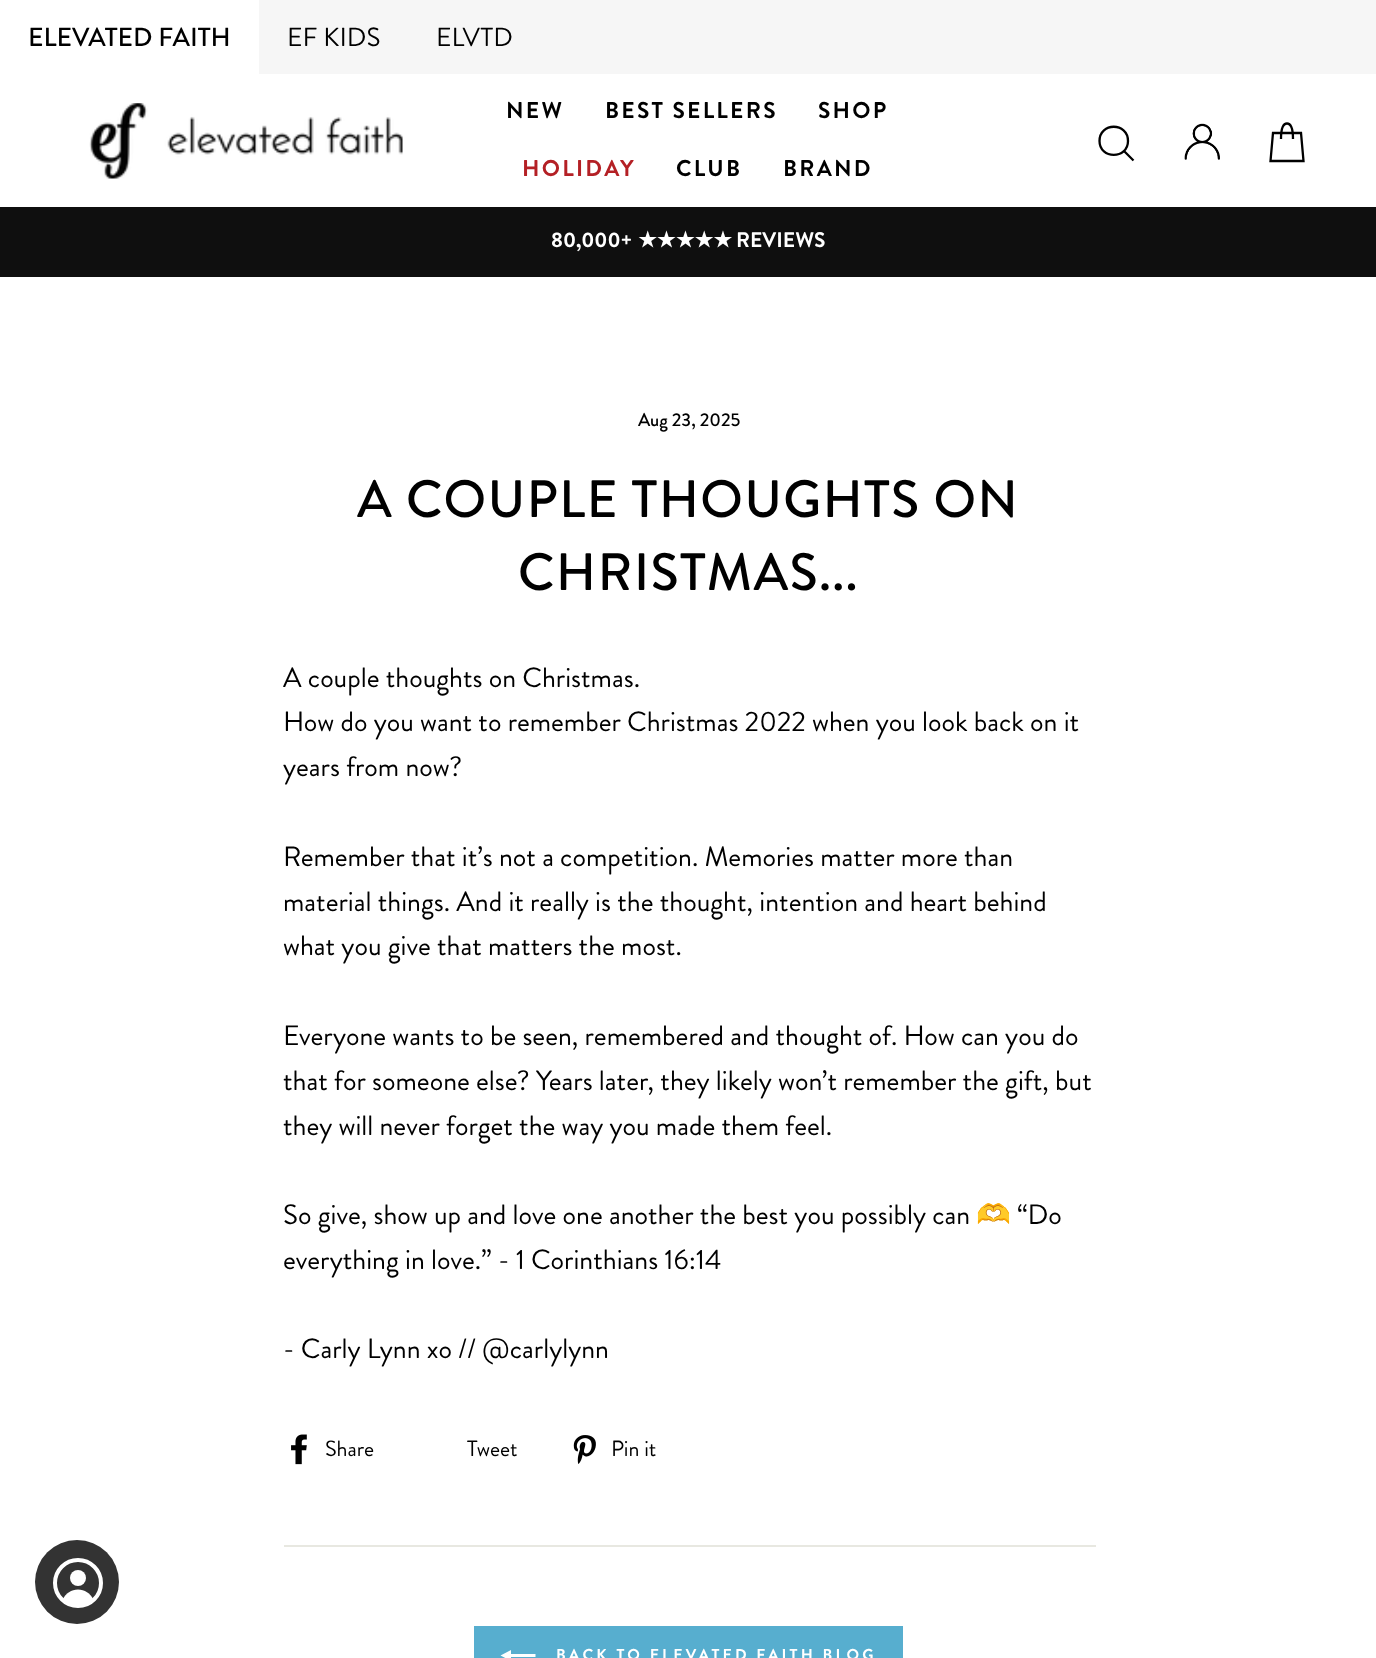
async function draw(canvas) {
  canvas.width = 1376;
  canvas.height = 1658;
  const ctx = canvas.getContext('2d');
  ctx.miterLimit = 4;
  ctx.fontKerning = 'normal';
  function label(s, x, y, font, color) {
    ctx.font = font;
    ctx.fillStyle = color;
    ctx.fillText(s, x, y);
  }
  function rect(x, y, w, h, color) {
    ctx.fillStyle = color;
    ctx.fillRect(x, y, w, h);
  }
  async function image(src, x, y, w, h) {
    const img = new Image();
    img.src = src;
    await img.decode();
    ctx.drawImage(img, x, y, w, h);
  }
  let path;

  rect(0, 0, 1376, 1658, '#fff');
  rect(259, 0, 1117, 74, '#f6f6f6');
  label('ELEVATED FAITH', 28, 46, '500 26.25px Brandon Grotesque', '#000');
  label('EF KIDS', 287, 46, '26.25px Brandon Grotesque', '#000');
  label('ELVTD', 436, 46, '26.25px Brandon Grotesque', '#000');
  await image('assets/img1.png', 89, 103, 314, 76);
  ctx.letterSpacing = '2.25px';
  label('NEW', 506, 118, 'bold 22.75px Brandon Grotesque', '#000');
  label('BEST SELLERS', 605, 118, 'bold 22.75px Brandon Grotesque', '#000');
  label('SHOP', 818, 118, 'bold 22.75px Brandon Grotesque', '#000');
  label('HOLIDAY', 522, 176, 'bold 22.75px Brandon Grotesque', '#b42025');
  label('CLUB', 676, 176, 'bold 22.75px Brandon Grotesque', '#000');
  label('BRAND', 783, 176, 'bold 22.75px Brandon Grotesque', '#000');
  path = new Path2D('M1128 141C1128 159.5 1099.5 159.5 1099.5 141C1099.5 122 1128 122 1128 141ZM1133.5 160.5L1124 151');
  ctx.strokeStyle = '#000';
  ctx.lineWidth = 2.3;
  ctx.stroke(path);
  await image('assets/img2.png', 1184, 123, 36, 37);
  path = new Path2D('M1281 139C1281 127 1283.5 123.5 1287 123.5C1290.5 123.5 1293 127 1293 139M1273 133H1301L1303.5 161H1270.5Z');
  ctx.stroke(path);
  rect(0, 207, 1376, 70, '#0f0f0f');
  ctx.letterSpacing = '0px';
  label('80,000+', 551, 247, 'bold 21px Brandon Grotesque', '#fff');
  label('★★★★★', 638, 247, 'bold 21px DejaVu Sans', '#fff');
  label('REVIEWS', 736, 247, 'bold 21px Brandon Grotesque', '#fff');
  label('Aug 23, 2025', 638, 426, '500 18.5px Brandon Grotesque', '#000');
  ctx.letterSpacing = '1.3px';
  label('A COUPLE THOUGHTS ON', 357, 517, '500 52.5px Brandon Grotesque', '#000');
  label('CHRISTMAS...', 518, 590, '500 52.5px Brandon Grotesque', '#000');
  ctx.letterSpacing = '0px';
  label('A couple thoughts on Christmas.', 283, 687, '28px Brandon Grotesque', '#000');
  label('How do you want to remember Christmas 2022 when you look back on it', 283, 731, '28px Brandon Grotesque', '#000');
  label('years from now?', 283, 776, '28px Brandon Grotesque', '#000');
  label('Remember that it’s not a competition. Memories matter more than', 283, 866, '28px Brandon Grotesque', '#000');
  label('material things. And it really is the thought, intention and heart behind', 283, 911, '28px Brandon Grotesque', '#000');
  label('what you give that matters the most.', 283, 955, '28px Brandon Grotesque', '#000');
  label('Everyone wants to be seen, remembered and thought of. How can you do', 283, 1045, '28px Brandon Grotesque', '#000');
  label('that for someone else? Years later, they likely won’t remember the gift, but', 283, 1090, '28px Brandon Grotesque', '#000');
  label('they will never forget the way you made them feel.', 283, 1135, '28px Brandon Grotesque', '#000');
  label('So give, show up and love one another the best you possibly can', 283, 1224, '28px Brandon Grotesque', '#000');
  label('🫶', 976, 1224, '28px Noto Color Emoji', '#000');
  label('“Do', 1017, 1224, '28px Brandon Grotesque', '#000');
  label('everything in love.” - 1 Corinthians 16:14', 283, 1269, '28px Brandon Grotesque', '#000');
  label('- Carly Lynn xo // @carlylynn', 283, 1358, '28px Brandon Grotesque', '#000');
  await image('assets/img3.png', 291, 1434, 16, 31);
  label('Share', 325, 1456, '22px Brandon Grotesque', '#000');
  label('Tweet', 467, 1456, '22px Brandon Grotesque', '#000');
  await image('assets/img4.png', 573, 1435, 23, 29);
  label('Pin it', 611, 1456, '22px Brandon Grotesque', '#000');
  rect(284, 1545, 812, 2, '#e8e8e1');
  rect(474, 1626, 429, 32, '#57aecf');
  ctx.fillStyle = '#fff';
  path = new Path2D('M535.5 1654V1657H511V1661L500.5 1655.5L511 1650V1654Z');
  ctx.fill(path);
  ctx.letterSpacing = '3.15px';
  label('BACK TO ELEVATED FAITH BLOG', 556, 1660, 'bold 15.75px Brandon Grotesque', '#fff');
  ctx.fillStyle = '#333';
  ctx.beginPath();
  ctx.arc(77, 1582, 42, 0, 2 * Math.PI);
  ctx.fill();
  ctx.fillStyle = '#fff';
  path = new Path2D('M78 1589.5C71.5 1589.5 65.5 1593.5 63 1599C71 1607 85 1607 93 1599C90.5 1593.5 84.5 1589.5 78 1589.5Z');
  ctx.fill(path);
  ctx.beginPath();
  ctx.arc(78, 1578, 8, 0, 2 * Math.PI);
  ctx.fill();
  ctx.beginPath();
  ctx.arc(78, 1583, 23, 0, 2 * Math.PI);
  ctx.strokeStyle = '#fff';
  ctx.lineWidth = 4;
  ctx.stroke();
}

draw(document.querySelector('canvas'));
